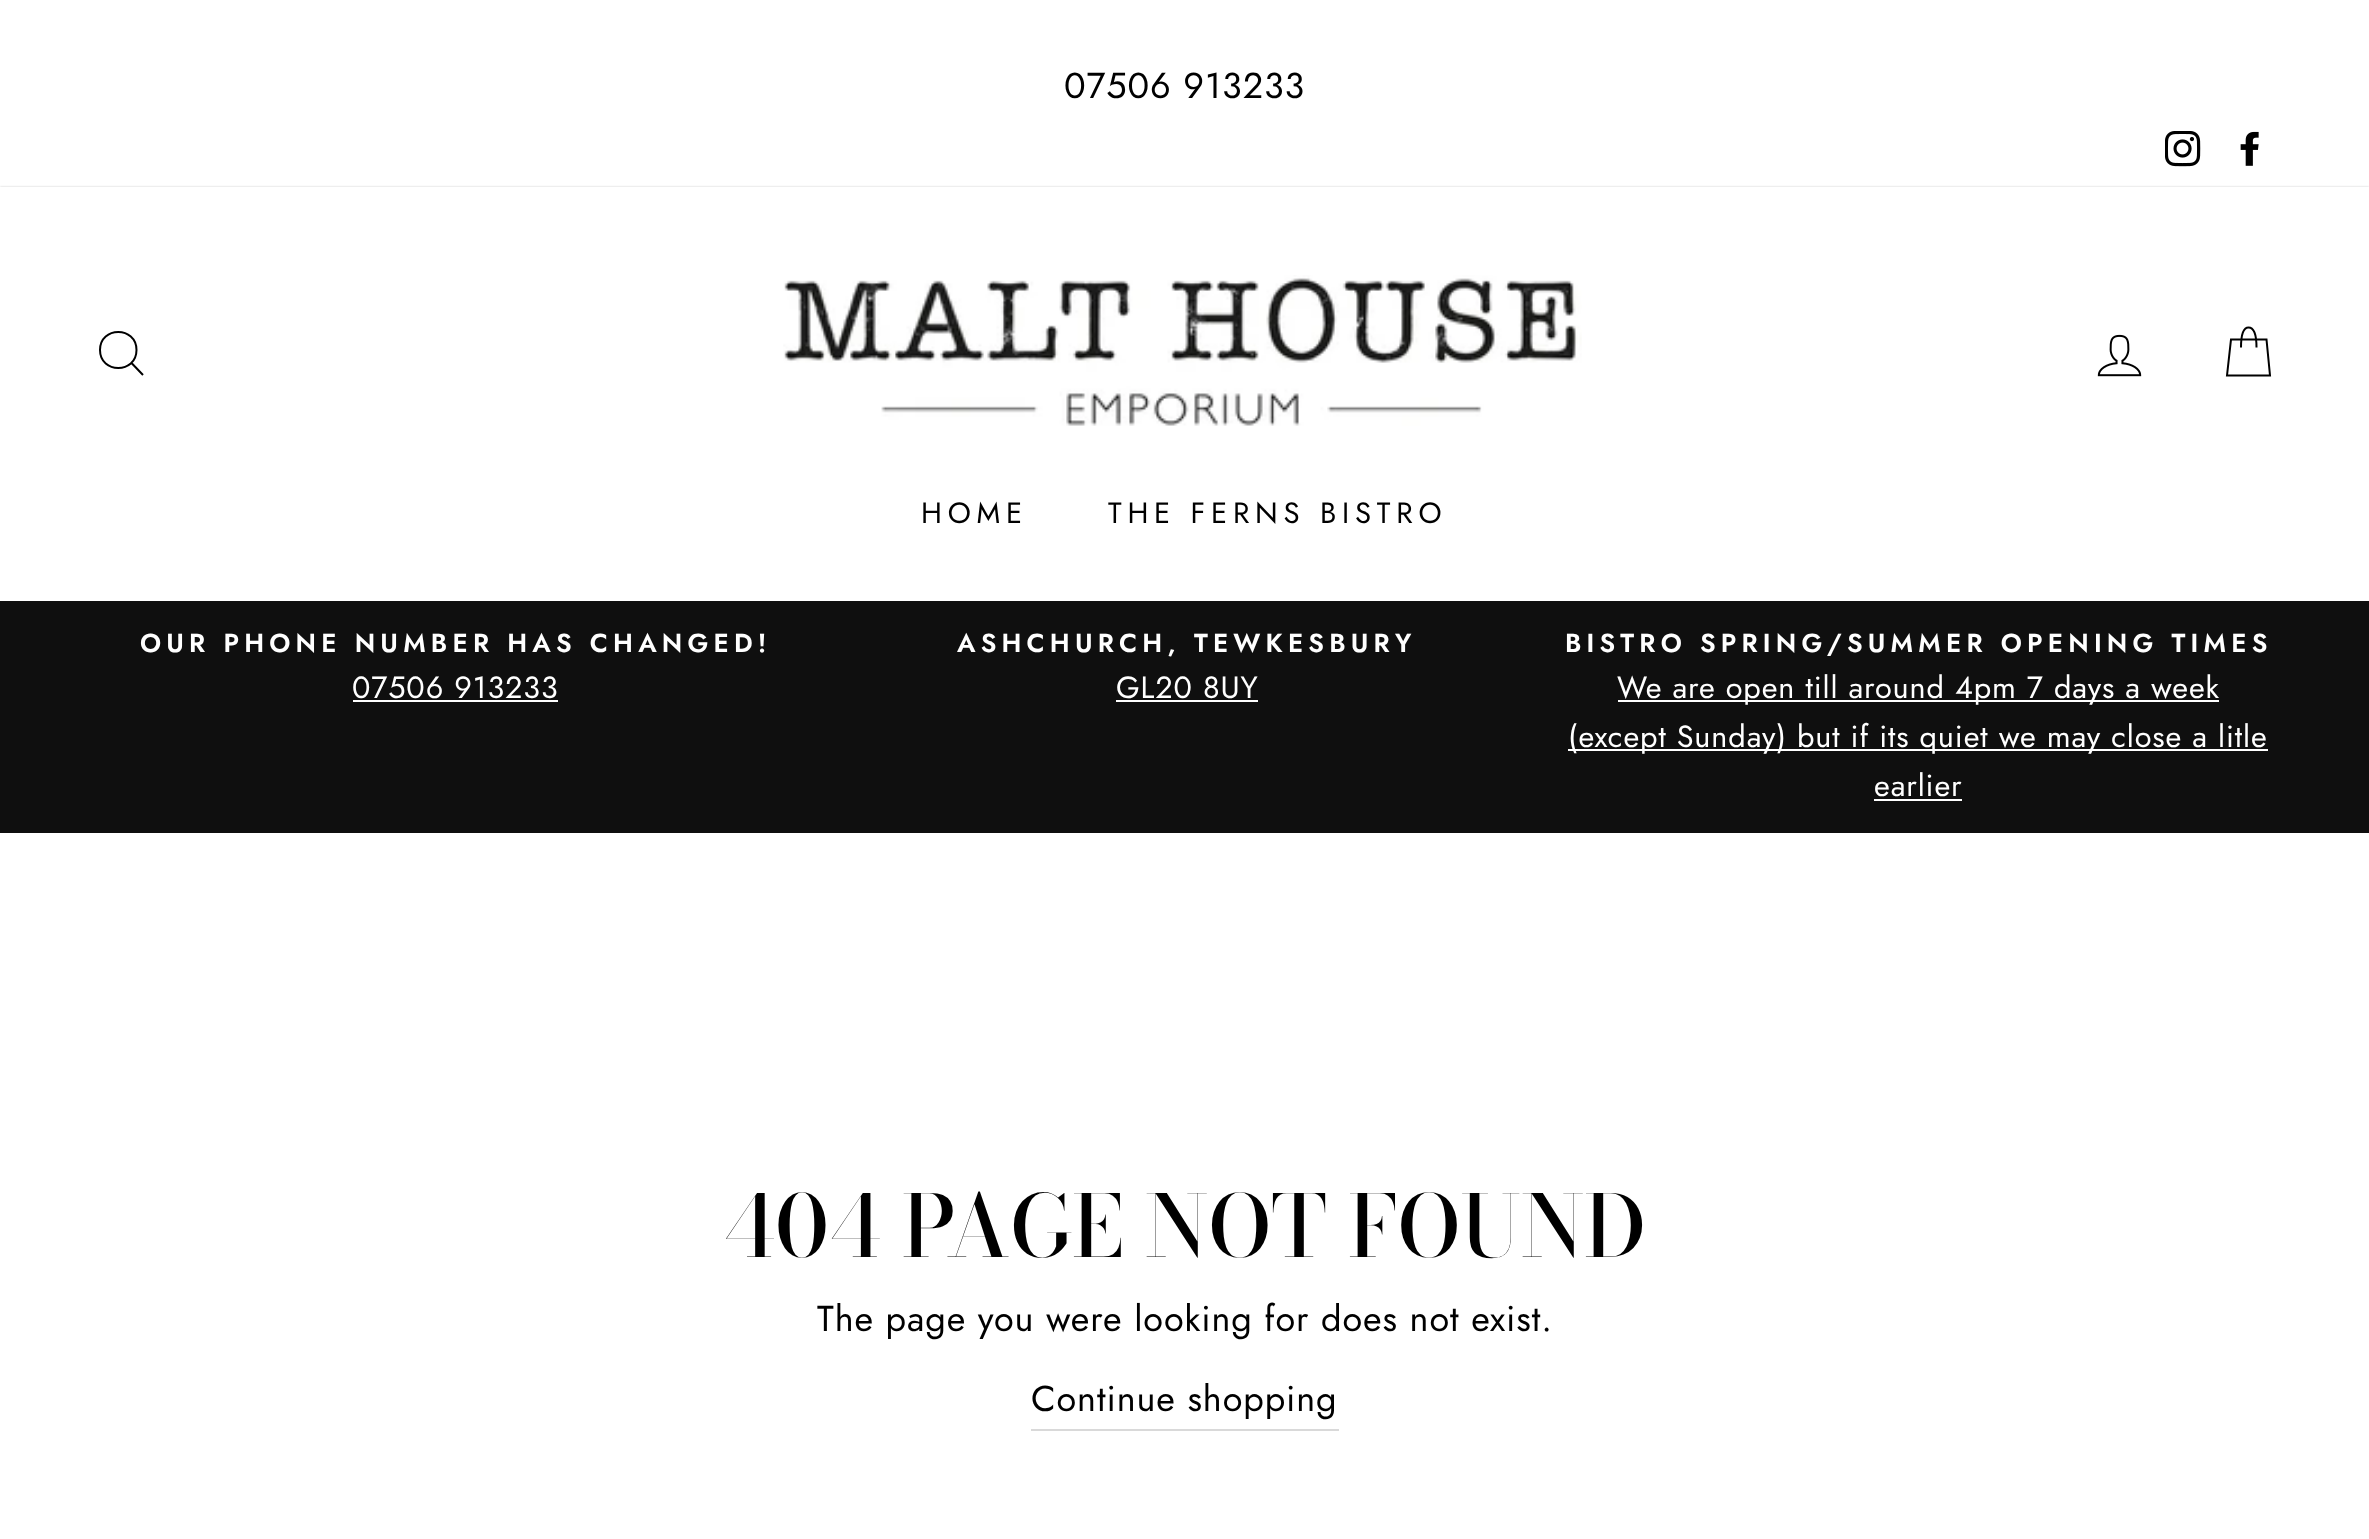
async function draw(canvas) {
  canvas.width = 2369;
  canvas.height = 1539;
  const ctx = canvas.getContext('2d');
  ctx.miterLimit = 4;
  ctx.fontKerning = 'normal';
  function label(s, x, y, font, color) {
    ctx.font = font;
    ctx.fillStyle = color;
    ctx.fillText(s, x, y);
  }
  function rect(x, y, w, h, color) {
    ctx.fillStyle = color;
    ctx.fillRect(x, y, w, h);
  }
  async function image(src, x, y, w, h) {
    const img = new Image();
    img.src = src;
    await img.decode();
    ctx.drawImage(img, x, y, w, h);
  }
  let path;

  rect(0, 0, 2369, 1539, '#fff');
  ctx.letterSpacing = '0.9px';
  label('07506 913233', 1064, 98, '36px Jost', '#000');
  await image('assets/img1.png', 2165, 131, 36, 36);
  await image('assets/img2.png', 2240, 131, 19, 35);
  ctx.fillStyle = '#00000033';
  ctx.filter = 'blur(1px)';
  ctx.beginPath();
  ctx.rect(0, 187, 2369, 414);
  ctx.fill();
  ctx.filter = 'none';
  rect(0, 187, 2369, 414, '#fff');
  path = new Path2D('M136.5 350C136.5 374 100 374 100 350C100 326 136.5 326 136.5 350ZM143 375L131.5 363');
  ctx.strokeStyle = '#000';
  ctx.lineWidth = 2;
  ctx.stroke(path);
  await image('assets/img3.png', 783, 275, 799, 151);
  await image('assets/img4.png', 2097, 334, 45, 43);
  path = new Path2D('M2241 347.5C2241 332 2244.5 327.5 2248.5 327.5C2253 327.5 2256.5 332 2256.5 347.5M2231 339.5H2266.5L2270 375.5H2227Z');
  ctx.stroke(path);
  ctx.letterSpacing = '5.8px';
  label('HOME', 921, 523, '29.25px Jost', '#000');
  label('THE FERNS BISTRO', 1108, 523, '29.25px Jost', '#000');
  rect(0, 601, 2369, 232, '#0f0f0f');
  ctx.letterSpacing = '5.2px';
  label('OUR PHONE NUMBER HAS CHANGED!', 140, 652, '600 26px Jost', '#fff');
  ctx.letterSpacing = '0.9px';
  label('07506 913233', 352, 698, '30.6px Jost', '#fff');
  rect(353, 700, 205, 2, '#fff');
  ctx.letterSpacing = '5.2px';
  label('ASHCHURCH, TEWKESBURY', 957, 652, '600 26px Jost', '#fff');
  ctx.letterSpacing = '0.9px';
  label('GL20 8UY', 1116, 698, '30.6px Jost', '#fff');
  rect(1116, 700, 142, 2, '#fff');
  ctx.letterSpacing = '5.2px';
  label('BISTRO SPRING/SUMMER OPENING TIMES', 1565, 652, '600 26px Jost', '#fff');
  rect(1618, 700, 601, 2, '#fff');
  ctx.letterSpacing = '0.9px';
  label('We are open till around 4pm 7 days a week', 1617, 698, '30.6px Jost', '#fff');
  rect(1568, 749, 700, 2, '#fff');
  label('(except Sunday) but if its quiet we may close a litle', 1568, 747, '30.6px Jost', '#fff');
  label('earlier', 1874, 796, '30.6px Jost', '#fff');
  rect(1874, 799, 88, 2, '#fff');
  ctx.letterSpacing = '0px';
  label('404 PAGE NOT FOUND', 723, 1257, '500 85.5px Bodoni Moda', '#000');
  ctx.letterSpacing = '0.9px';
  label('The page you were looking for does not exist.', 817, 1331, '36px Jost', '#000');
  rect(1031, 1429, 308, 2, '#d9d9d9');
  label('Continue shopping', 1031, 1411, '36px Jost', '#000');
}

draw(document.querySelector('canvas'));
